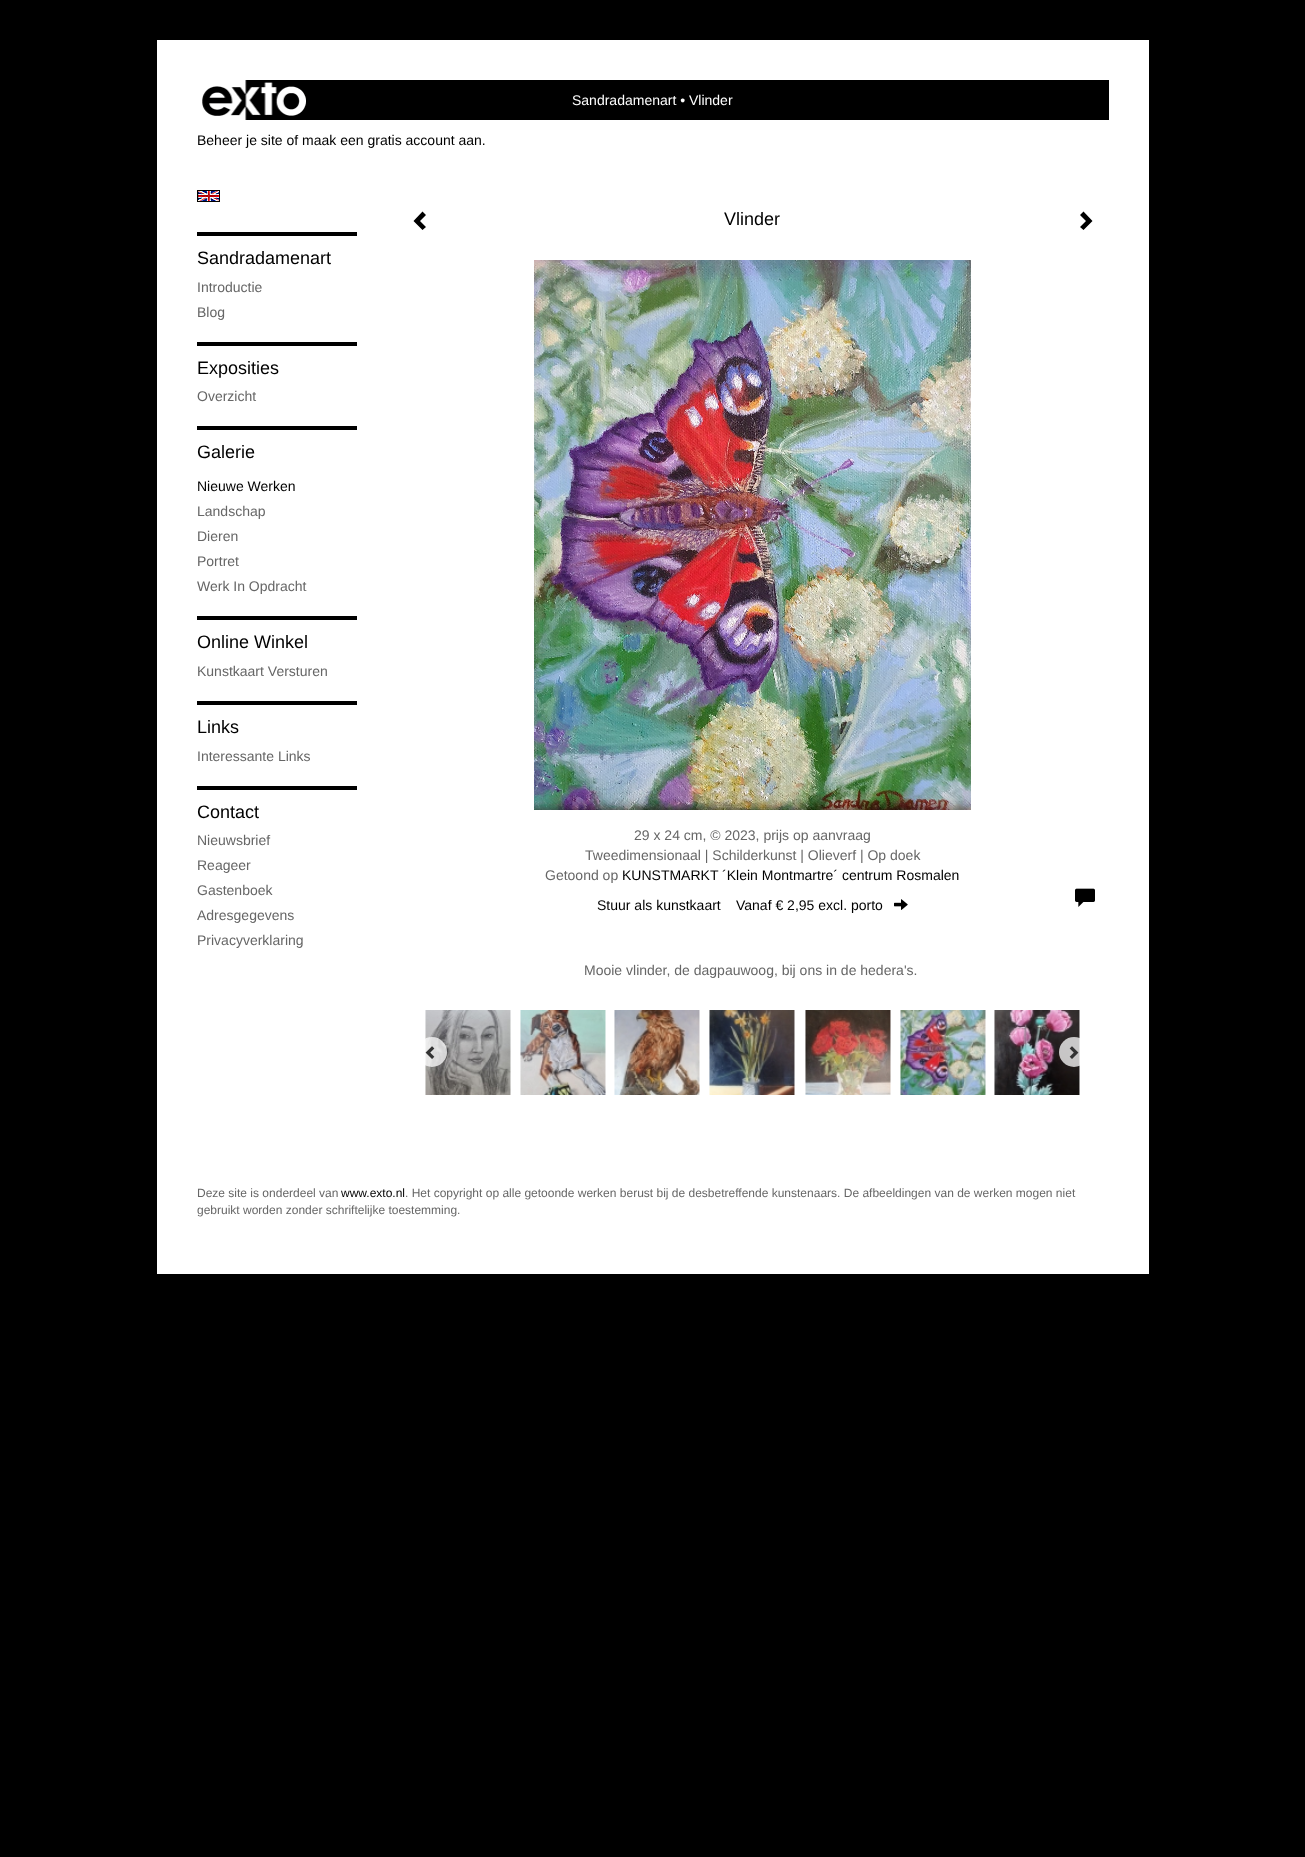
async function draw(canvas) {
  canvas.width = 1305;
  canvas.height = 1857;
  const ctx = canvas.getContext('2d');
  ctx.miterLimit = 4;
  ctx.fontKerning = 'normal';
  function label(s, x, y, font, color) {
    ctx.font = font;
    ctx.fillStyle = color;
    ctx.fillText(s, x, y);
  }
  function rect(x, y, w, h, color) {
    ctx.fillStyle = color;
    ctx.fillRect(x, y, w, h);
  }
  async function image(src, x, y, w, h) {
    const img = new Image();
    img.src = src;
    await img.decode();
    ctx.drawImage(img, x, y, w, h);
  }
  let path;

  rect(0, 0, 1305, 1857, '#000');
  rect(157, 40, 992, 1234, '#fff');
  rect(202, 80, 907, 40, '#000');
  await image('assets/img1.png', 197, 80, 109, 40);
  label('Sandradamenart • Vlinder', 572, 105, '14px Liberation Sans', '#fff');
  label('Beheer je site of maak een gratis account aan.', 197, 145, '14px Liberation Sans', '#000');
  await image('assets/img2.png', 197, 190, 23, 12);
  rect(197, 232, 160, 4, '#000');
  label('Sandradamenart', 197, 264, '18px Liberation Sans', '#000');
  label('Introductie', 197, 292, '14px Liberation Sans', '#666');
  label('Blog', 197, 317, '14px Liberation Sans', '#666');
  rect(197, 342, 160, 4, '#000');
  label('Exposities', 197, 374, '18px Liberation Sans', '#000');
  label('Overzicht', 197, 401, '14px Liberation Sans', '#666');
  rect(197, 426, 160, 4, '#000');
  label('Galerie', 197, 458, '18px Liberation Sans', '#000');
  label('Nieuwe Werken', 197, 491, '14px Liberation Sans', '#000');
  label('Landschap', 197, 516, '14px Liberation Sans', '#666');
  label('Dieren', 197, 541, '14px Liberation Sans', '#666');
  label('Portret', 197, 566, '14px Liberation Sans', '#666');
  label('Werk In Opdracht', 197, 591, '14px Liberation Sans', '#666');
  rect(197, 616, 160, 4, '#000');
  label('Online Winkel', 197, 648, '18px Liberation Sans', '#000');
  label('Kunstkaart Versturen', 197, 676, '14px Liberation Sans', '#666');
  rect(197, 701, 160, 4, '#000');
  label('Links', 197, 733, '18px Liberation Sans', '#000');
  label('Interessante Links', 197, 761, '14px Liberation Sans', '#666');
  rect(197, 786, 160, 4, '#000');
  label('Contact', 197, 818, '18px Liberation Sans', '#000');
  label('Nieuwsbrief', 197, 845, '14px Liberation Sans', '#666');
  label('Reageer', 197, 870, '14px Liberation Sans', '#666');
  label('Gastenboek', 197, 895, '14px Liberation Sans', '#666');
  label('Adresgegevens', 197, 920, '14px Liberation Sans', '#666');
  label('Privacyverklaring', 197, 945, '14px Liberation Sans', '#666');
  ctx.fillStyle = '#000';
  path = new Path2D('M426 215L420 221L426 227L422.5 230L413.5 221L422.5 211.5Z');
  ctx.fill(path);
  label('Vlinder', 724, 225, '18px Liberation Sans', '#000');
  path = new Path2D('M1092.5 221L1083.5 230L1080 227L1086 221L1080 215L1083.5 211.5Z');
  ctx.fill(path);
  await image('assets/img3.png', 534, 260, 437, 550);
  label('29 x 24 cm, © 2023, prijs op aanvraag', 634, 840, '14px Liberation Sans', '#666');
  label('Tweedimensionaal | Schilderkunst | Olieverf | Op doek', 585, 860, '14px Liberation Sans', '#666');
  label('Getoond op', 545, 880, '14px Liberation Sans', '#666');
  label('KUNSTMARKT ´Klein Montmartre´ centrum Rosmalen', 622, 880, '14px Liberation Sans', '#000');
  label('Stuur als kunstkaart', 597, 910, '14px Liberation Sans', '#000');
  label('Vanaf € 2,95 excl. porto', 736, 910, '14px Liberation Sans', '#000');
  await image('assets/img4.png', 894, 899, 14, 11);
  await image('assets/img5.png', 1075, 888, 20, 19);
  label('Mooie vlinder, de dagpauwoog, bij ons in de hedera\'s.', 584, 975, '14px Liberation Sans', '#666');
  await image('assets/img6.png', 425, 1010, 86, 85);
  await image('assets/img7.png', 520, 1010, 86, 85);
  await image('assets/img8.png', 614, 1010, 86, 85);
  await image('assets/img9.png', 709, 1010, 86, 85);
  await image('assets/img10.png', 805, 1010, 86, 85);
  await image('assets/img11.png', 900, 1010, 86, 85);
  await image('assets/img12.png', 994, 1010, 86, 85);
  ctx.fillStyle = '#ffffffbf';
  ctx.beginPath();
  ctx.arc(432, 1052, 15, 0, 2 * Math.PI);
  ctx.fill();
  await image('assets/img13.png', 425, 1046, 10, 13);
  ctx.beginPath();
  ctx.arc(1074, 1052, 15, 0, 2 * Math.PI);
  ctx.fill();
  await image('assets/img14.png', 1069, 1046, 10, 13);
  label('Deze site is onderdeel van', 197, 1197, '12px Liberation Sans', '#666');
  label('www.exto.nl', 341, 1197, '12px Liberation Sans', '#000');
  label('. Het copyright op alle getoonde werken berust bij de desbetreffende kunstenaars. De afbeeldingen van de werken mogen niet', 405, 1197, '12px Liberation Sans', '#666');
  label('gebruikt worden zonder schriftelijke toestemming.', 197, 1214, '12px Liberation Sans', '#666');
}

draw(document.querySelector('canvas'));
